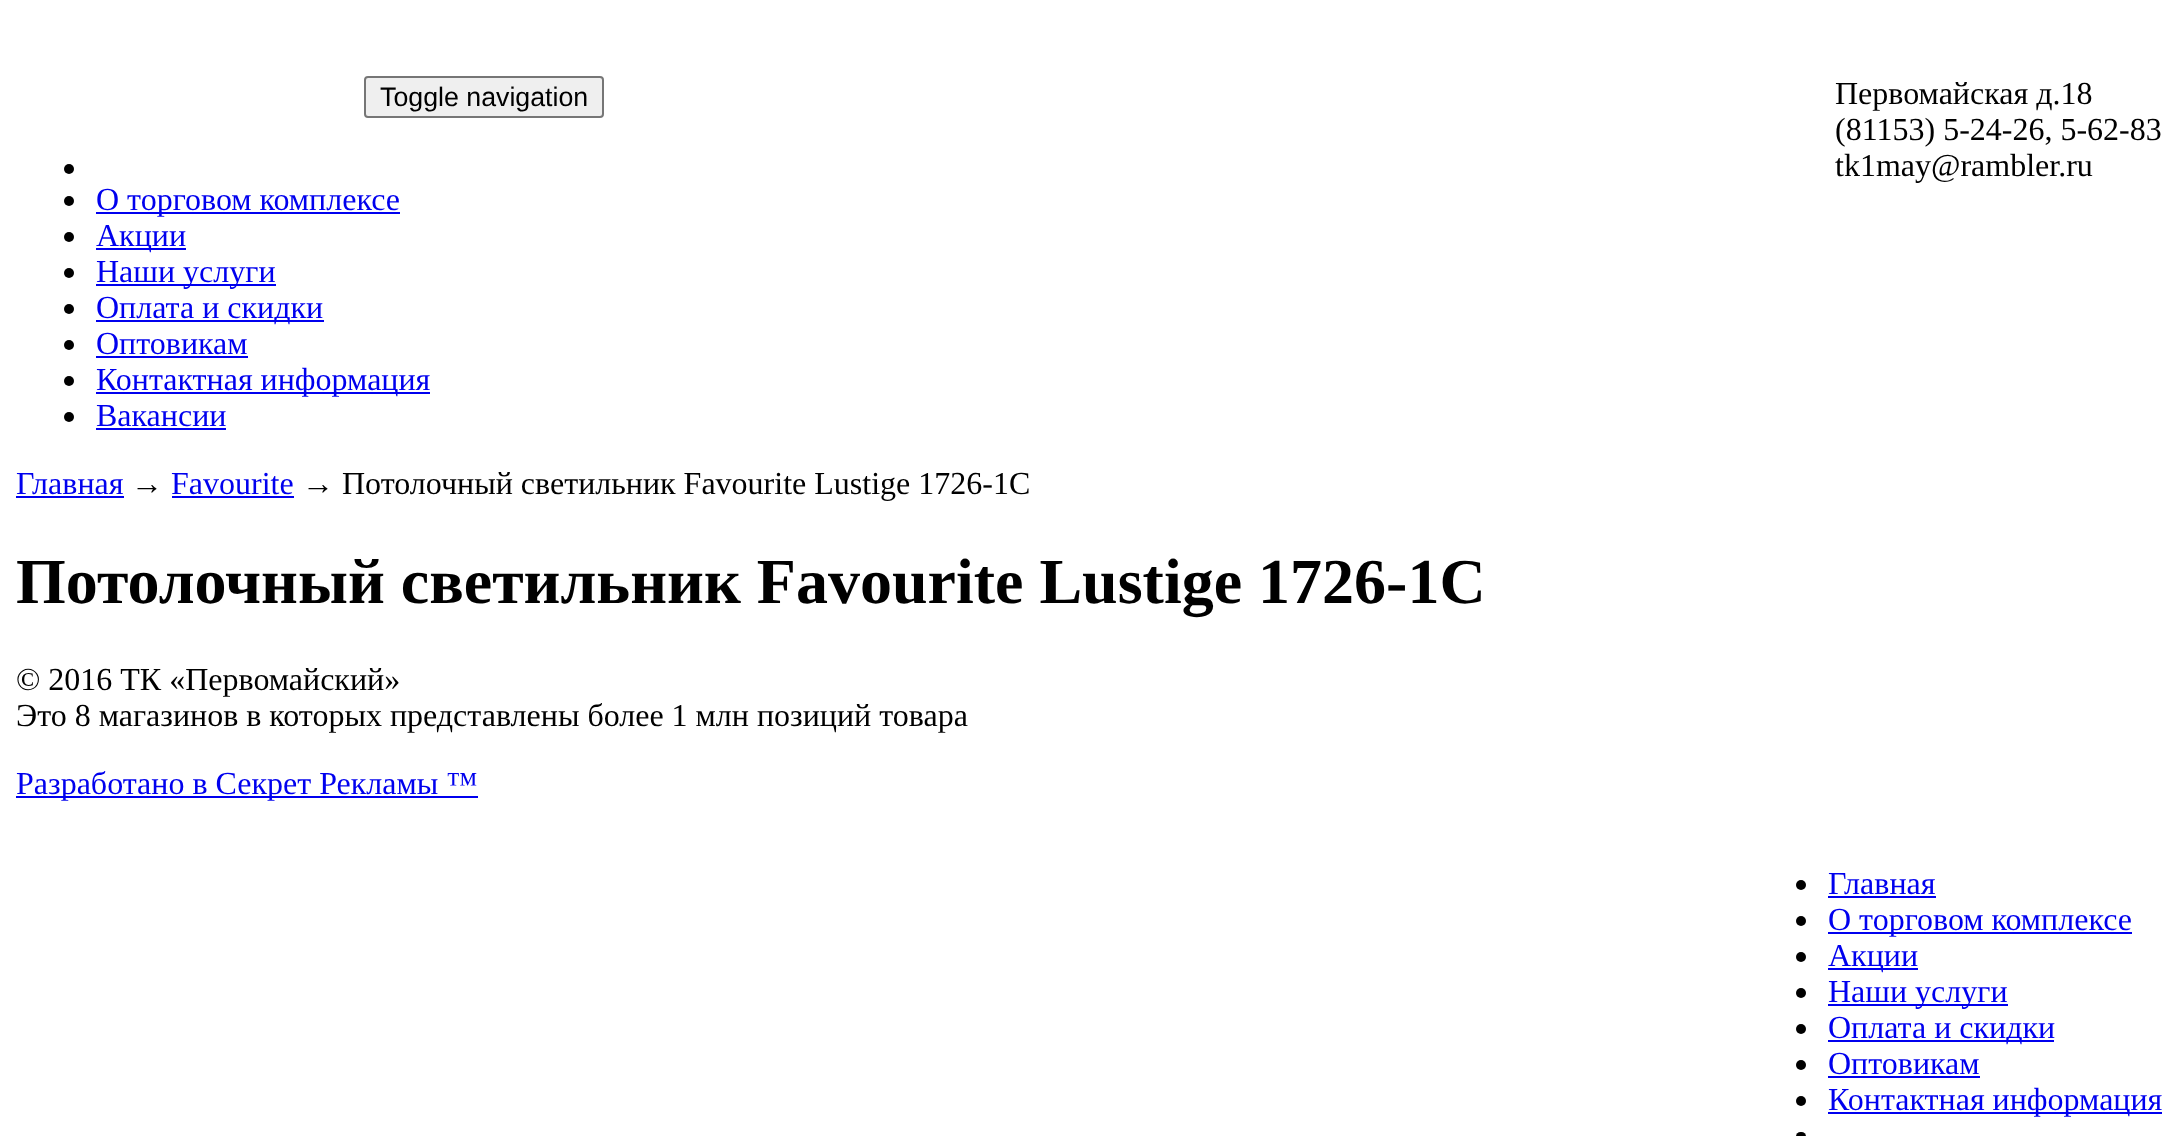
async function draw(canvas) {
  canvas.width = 2177;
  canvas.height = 1136;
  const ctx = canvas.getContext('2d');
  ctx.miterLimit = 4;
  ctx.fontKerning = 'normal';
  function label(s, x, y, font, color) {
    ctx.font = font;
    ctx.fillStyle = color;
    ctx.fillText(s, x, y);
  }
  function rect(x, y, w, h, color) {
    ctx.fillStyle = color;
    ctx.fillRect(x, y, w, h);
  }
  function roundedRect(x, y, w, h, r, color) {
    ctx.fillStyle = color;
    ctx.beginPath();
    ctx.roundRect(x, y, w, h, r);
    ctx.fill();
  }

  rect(0, 0, 2177, 1136, '#fff');
  ctx.fillStyle = '#efefef';
  ctx.beginPath();
  ctx.roundRect(365, 77, 238, 40, 3);
  ctx.fill();
  ctx.strokeStyle = '#767676';
  ctx.lineWidth = 2;
  ctx.stroke();
  label('Toggle navigation', 380, 106, '26.75px Liberation Sans', '#000');
  ctx.beginPath();
  ctx.arc(69, 169, 5, 0, 2 * Math.PI);
  ctx.fill();
  ctx.beginPath();
  ctx.arc(69, 201, 5, 0, 2 * Math.PI);
  ctx.fill();
  rect(96, 212, 304, 2, '#00e');
  label('О торговом комплексе', 96, 210, '32px Liberation Serif', '#00e');
  ctx.fillStyle = '#000';
  ctx.beginPath();
  ctx.arc(69, 237, 5, 0, 2 * Math.PI);
  ctx.fill();
  rect(96, 248, 90, 2, '#00e');
  label('Акции', 96, 246, '32px Liberation Serif', '#00e');
  ctx.fillStyle = '#000';
  ctx.beginPath();
  ctx.arc(69, 273, 5, 0, 2 * Math.PI);
  ctx.fill();
  rect(96, 284, 180, 2, '#00e');
  label('Наши услуги', 96, 282, '32px Liberation Serif', '#00e');
  ctx.fillStyle = '#000';
  ctx.beginPath();
  ctx.arc(69, 309, 5, 0, 2 * Math.PI);
  ctx.fill();
  rect(96, 320, 228, 2, '#00e');
  label('Оплата и скидки', 96, 318, '32px Liberation Serif', '#00e');
  ctx.fillStyle = '#000';
  ctx.beginPath();
  ctx.arc(69, 345, 5, 0, 2 * Math.PI);
  ctx.fill();
  label('Оптовикам', 96, 354, '32px Liberation Serif', '#00e');
  rect(96, 356, 152, 2, '#00e');
  ctx.fillStyle = '#000';
  ctx.beginPath();
  ctx.arc(69, 381, 5, 0, 2 * Math.PI);
  ctx.fill();
  rect(96, 392, 334, 2, '#00e');
  label('Контактная информация', 96, 390, '32px Liberation Serif', '#00e');
  ctx.fillStyle = '#000';
  ctx.beginPath();
  ctx.arc(69, 417, 5, 0, 2 * Math.PI);
  ctx.fill();
  label('Вакансии', 96, 426, '32px Liberation Serif', '#00e');
  rect(96, 428, 130, 2, '#00e');
  label('Первомайская д.18', 1835, 104, '32px Liberation Serif', '#000');
  label('(81153) 5-24-26, 5-62-83', 1835, 140, '32px Liberation Serif', '#000');
  label('tk1may@rambler.ru', 1835, 176, '32px Liberation Serif', '#000');
  label('Главная', 16, 494, '32px Liberation Serif', '#00e');
  rect(16, 496, 108, 2, '#00e');
  label('→', 131, 494, '32px Liberation Serif', '#000');
  label('Favourite', 171, 494, '32px Liberation Serif', '#00e');
  rect(172, 496, 122, 2, '#00e');
  label('→ Потолочный светильник Favourite Lustige 1726-1C', 302, 494, '32px Liberation Serif', '#000');
  label('Потолочный светильник Favourite Lustige 1726-1C', 16, 603, 'bold 64px Liberation Serif', '#000');
  label('© 2016 ТК «Первомайский»', 16, 690, '32px Liberation Serif', '#000');
  label('Это 8 магазинов в которых представлены более 1 млн позиций товара', 16, 726, '32px Liberation Serif', '#000');
  rect(16, 796, 462, 2, '#00e');
  label('Разработано в Секрет Рекламы ™', 16, 794, '32px Liberation Serif', '#00e');
  ctx.fillStyle = '#000';
  ctx.beginPath();
  ctx.arc(1801, 885, 5, 0, 2 * Math.PI);
  ctx.fill();
  label('Главная', 1828, 894, '32px Liberation Serif', '#00e');
  rect(1828, 896, 108, 2, '#00e');
  ctx.fillStyle = '#000';
  ctx.beginPath();
  ctx.arc(1801, 921, 5, 0, 2 * Math.PI);
  ctx.fill();
  rect(1828, 932, 304, 2, '#00e');
  label('О торговом комплексе', 1828, 930, '32px Liberation Serif', '#00e');
  ctx.fillStyle = '#000';
  ctx.beginPath();
  ctx.arc(1801, 957, 5, 0, 2 * Math.PI);
  ctx.fill();
  rect(1828, 968, 90, 2, '#00e');
  label('Акции', 1828, 966, '32px Liberation Serif', '#00e');
  ctx.fillStyle = '#000';
  ctx.beginPath();
  ctx.arc(1801, 993, 5, 0, 2 * Math.PI);
  ctx.fill();
  rect(1828, 1004, 180, 2, '#00e');
  label('Наши услуги', 1828, 1002, '32px Liberation Serif', '#00e');
  ctx.fillStyle = '#000';
  ctx.beginPath();
  ctx.arc(1801, 1029, 5, 0, 2 * Math.PI);
  ctx.fill();
  rect(1828, 1040, 226, 2, '#00e');
  label('Оплата и скидки', 1828, 1038, '32px Liberation Serif', '#00e');
  ctx.fillStyle = '#000';
  ctx.beginPath();
  ctx.arc(1801, 1065, 5, 0, 2 * Math.PI);
  ctx.fill();
  label('Оптовикам', 1828, 1074, '32px Liberation Serif', '#00e');
  rect(1828, 1076, 152, 2, '#00e');
  ctx.fillStyle = '#000';
  ctx.beginPath();
  ctx.arc(1801, 1101, 5, 0, 2 * Math.PI);
  ctx.fill();
  rect(1828, 1112, 334, 2, '#00e');
  label('Контактная информация', 1828, 1110, '32px Liberation Serif', '#00e');
  roundedRect(1796, 1132, 10, 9, 5, '#000');
}

draw(document.querySelector('canvas'));
